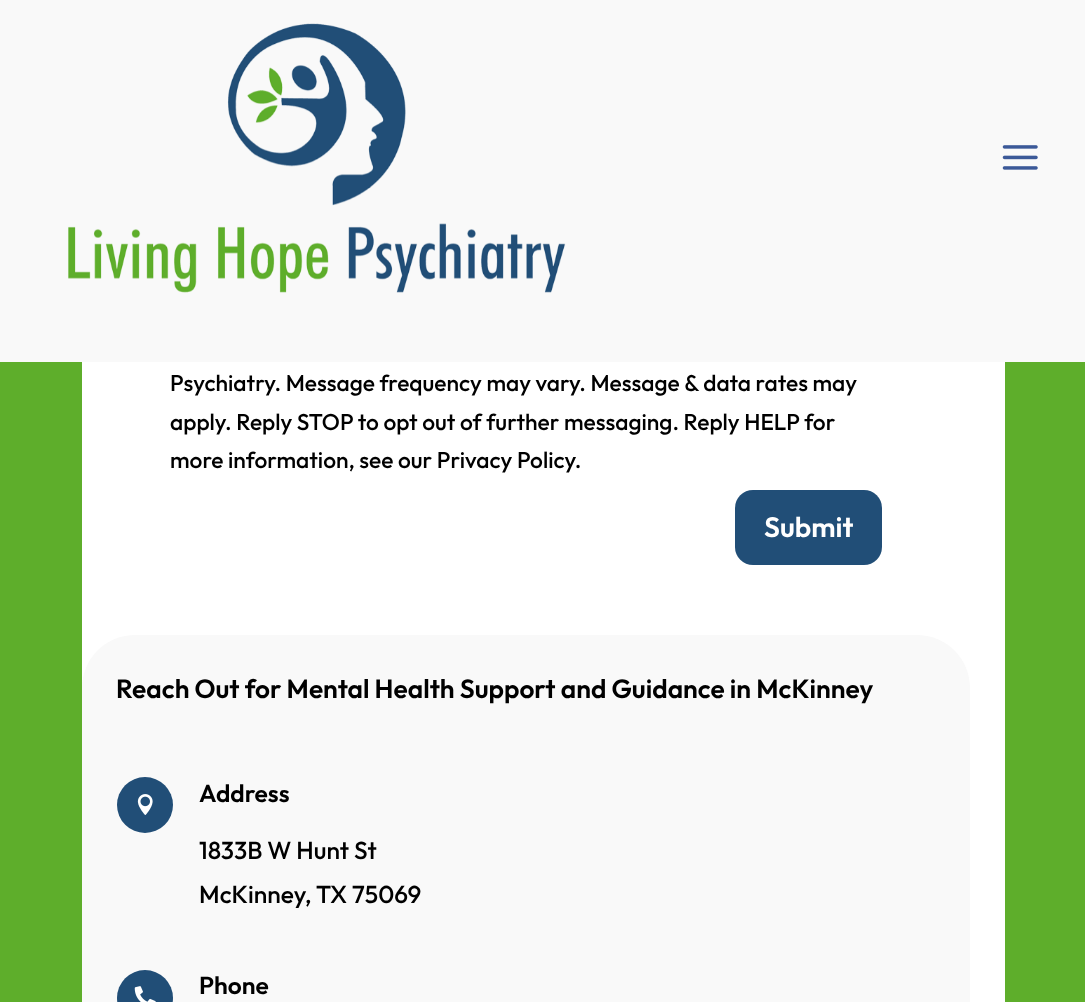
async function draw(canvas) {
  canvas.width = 1085;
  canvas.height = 1002;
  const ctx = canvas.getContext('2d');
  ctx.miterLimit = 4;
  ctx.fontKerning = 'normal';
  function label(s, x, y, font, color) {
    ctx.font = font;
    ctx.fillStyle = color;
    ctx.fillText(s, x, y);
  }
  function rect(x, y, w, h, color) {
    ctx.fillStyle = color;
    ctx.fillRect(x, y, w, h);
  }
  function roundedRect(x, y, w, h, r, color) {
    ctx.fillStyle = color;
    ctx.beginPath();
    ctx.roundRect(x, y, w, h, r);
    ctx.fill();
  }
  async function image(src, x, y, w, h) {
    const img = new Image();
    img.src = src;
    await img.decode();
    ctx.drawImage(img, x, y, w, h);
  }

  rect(0, 0, 1085, 1002, '#5eae2b');
  rect(0, 0, 1085, 362, '#f9f9f9');
  await image('assets/img1.png', 68, 23, 498, 270);
  await image('assets/img2.png', 1002, 145, 36, 25);
  rect(82, 362, 923, 640, '#fff');
  label('Psychiatry. Message frequency may vary. Message & data rates may', 170, 391, '500 22.75px Outfit', '#000');
  label('apply. Reply STOP to opt out of further messaging. Reply HELP for', 170, 430, '500 22.75px Outfit', '#000');
  label('more information, see our Privacy Policy.', 170, 468, '500 22.75px Outfit', '#000');
  roundedRect(735, 490, 147, 75, 18, '#214e77');
  label('Submit', 764, 537, '600 28px Outfit', '#fff');
  roundedRect(82, 635, 888, 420, 53, '#f9f9f9');
  label('Reach Out for Mental Health Support and Guidance in McKinney', 116, 698, '600 26.25px Outfit', '#000');
  ctx.fillStyle = '#214e77';
  ctx.beginPath();
  ctx.arc(145, 805, 28, 0, 2 * Math.PI);
  ctx.fill();
  await image('assets/img3.png', 137, 794, 16, 21);
  label('Address', 199, 802, '600 24.5px Outfit', '#000');
  label('1833B W Hunt St', 199, 859, '500 24.5px Outfit', '#000');
  label('McKinney, TX 75069', 199, 903, '500 24.5px Outfit', '#000');
  ctx.fillStyle = '#214e77';
  ctx.beginPath();
  ctx.arc(145, 998, 28, 0, 2 * Math.PI);
  ctx.fill();
  await image('assets/img4.png', 134, 986, 22, 16);
  label('Phone', 199, 994, '600 24.5px Outfit', '#000');
}

draw(document.querySelector('canvas'));
